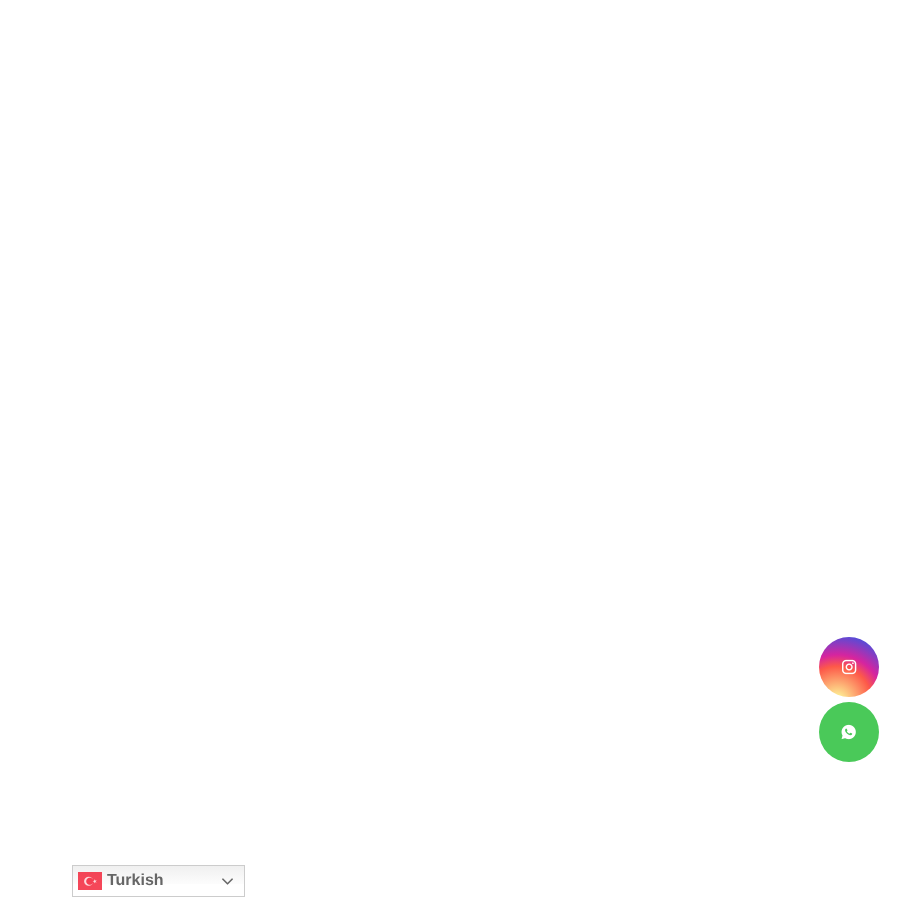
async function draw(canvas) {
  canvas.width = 906;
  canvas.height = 897;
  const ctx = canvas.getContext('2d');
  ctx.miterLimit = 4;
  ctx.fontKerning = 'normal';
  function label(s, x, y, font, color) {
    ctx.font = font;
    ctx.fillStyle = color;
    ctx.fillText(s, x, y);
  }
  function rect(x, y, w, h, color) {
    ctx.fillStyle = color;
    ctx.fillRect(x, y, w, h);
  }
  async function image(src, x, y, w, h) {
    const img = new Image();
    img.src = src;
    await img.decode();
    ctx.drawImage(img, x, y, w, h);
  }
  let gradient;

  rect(0, 0, 906, 897, '#fff');
  gradient = ctx.createRadialGradient(837, 701, 0, 837, 701, 77);
  gradient.addColorStop(0, '#fdf497');
  gradient.addColorStop(0.05, '#fdf497');
  gradient.addColorStop(0.45, '#fd5949');
  gradient.addColorStop(0.6, '#d6249f');
  gradient.addColorStop(0.95, '#285aeb');
  ctx.fillStyle = gradient;
  ctx.beginPath();
  ctx.arc(849, 667, 30, 0, 2 * Math.PI);
  ctx.fill();
  await image('assets/img1.png', 842, 659, 15, 16);
  ctx.fillStyle = '#4ac959';
  ctx.beginPath();
  ctx.arc(849, 732, 30, 0, 2 * Math.PI);
  ctx.fill();
  await image('assets/img2.png', 841, 724, 15, 16);
  gradient = ctx.createLinearGradient(159, 865, 159, 897);
  gradient.addColorStop(0, '#efefef');
  gradient.addColorStop(0.7, '#fff');
  ctx.fillStyle = gradient;
  ctx.fillRect(73, 866, 171, 18);
  ctx.strokeStyle = '#ccc';
  ctx.strokeRect(72.5, 865.5, 172, 31);
  await image('assets/img3.png', 78, 872, 24, 18);
  label('Turkish', 107, 885, 'bold 16px Liberation Sans', '#666');
  await image('assets/img4.png', 222, 878, 11, 7);
}

draw(document.querySelector('canvas'));
